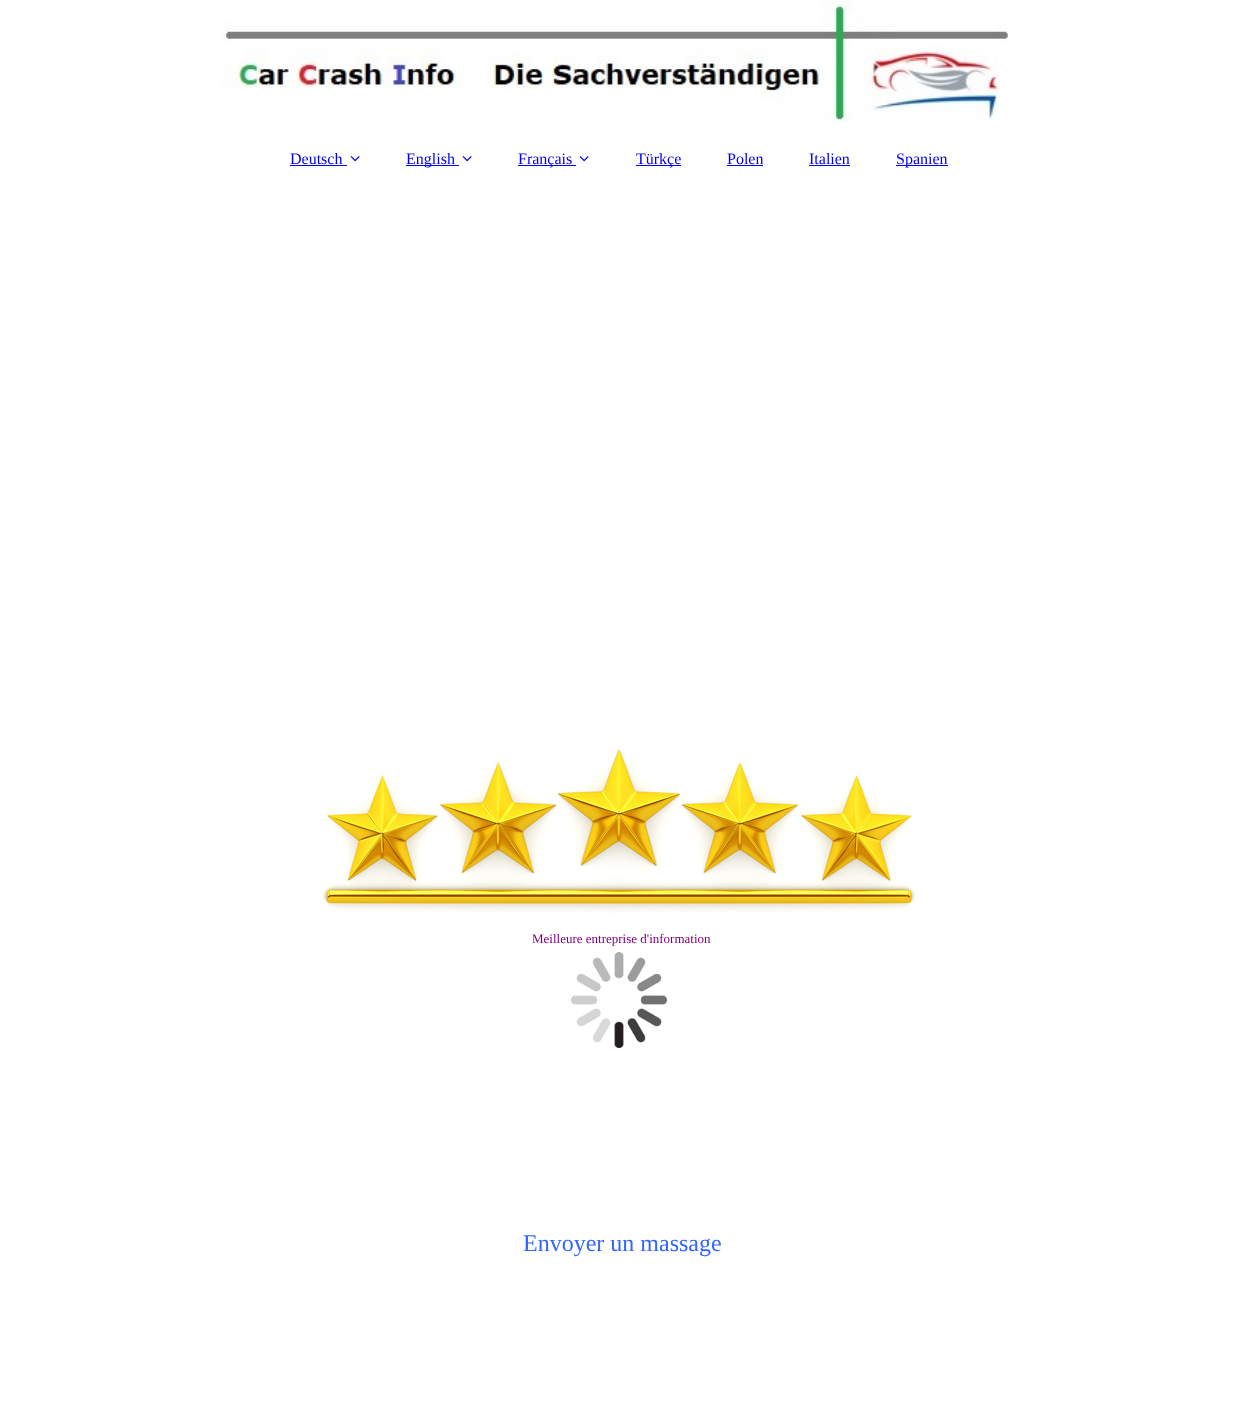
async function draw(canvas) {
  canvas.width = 1238;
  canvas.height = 1415;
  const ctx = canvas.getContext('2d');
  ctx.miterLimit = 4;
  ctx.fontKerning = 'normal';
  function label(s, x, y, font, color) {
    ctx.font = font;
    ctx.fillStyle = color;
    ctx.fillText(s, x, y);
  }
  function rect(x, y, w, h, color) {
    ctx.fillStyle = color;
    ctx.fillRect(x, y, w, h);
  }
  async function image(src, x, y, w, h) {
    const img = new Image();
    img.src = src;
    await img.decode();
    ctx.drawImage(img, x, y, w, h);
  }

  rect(0, 0, 1238, 1415, '#fff');
  await image('assets/img1.png', 222, 0, 786, 130);
  label('Deutsch', 290, 164, '16px Liberation Serif', '#00e');
  rect(290, 165, 57, 1, '#00e');
  await image('assets/img2.png', 350, 156, 10, 6);
  rect(406, 165, 53, 1, '#00e');
  label('English', 406, 164, '16px Liberation Serif', '#00e');
  await image('assets/img2.png', 462, 156, 10, 6);
  rect(518, 165, 58, 1, '#00e');
  label('Français', 518, 164, '16px Liberation Serif', '#00e');
  await image('assets/img2.png', 579, 156, 10, 6);
  rect(636, 165, 45, 1, '#00e');
  label('Türkçe', 636, 164, '16px Liberation Serif', '#00e');
  label('Polen', 727, 164, '16px Liberation Serif', '#00e');
  rect(727, 165, 36, 1, '#00e');
  label('Italien', 809, 164, '16px Liberation Serif', '#00e');
  rect(809, 165, 41, 1, '#00e');
  rect(896, 165, 52, 1, '#00e');
  label('Spanien', 896, 164, '16px Liberation Serif', '#00e');
  await image('assets/img3.png', 322, 747, 595, 167);
  label('Meilleure entreprise d\'information', 532, 943, '13px Liberation Serif', '#800080');
  await image('assets/img4.png', 571, 952, 96, 96);
  label('Envoyer un massage', 523, 1251, '24px Liberation Serif', '#36f');
}

draw(document.querySelector('canvas'));
